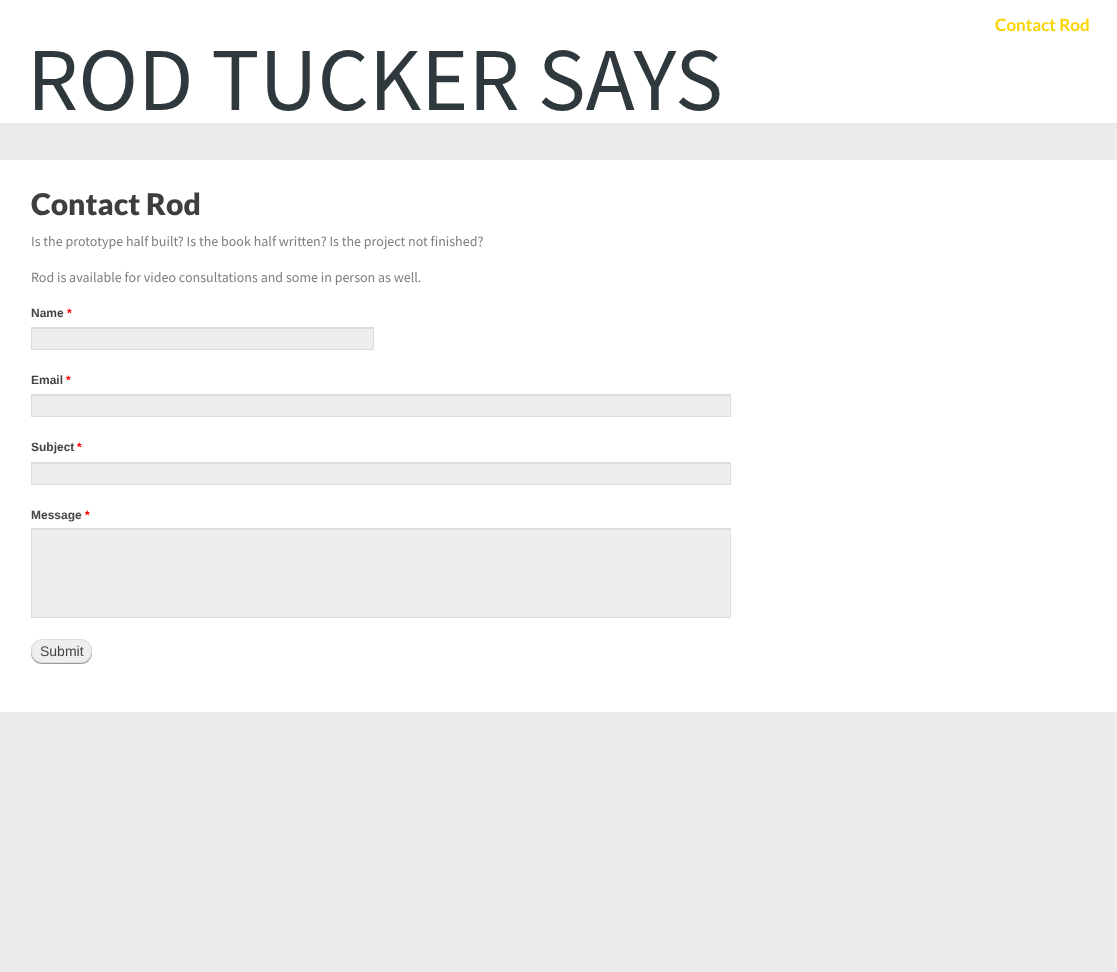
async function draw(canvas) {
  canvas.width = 1117;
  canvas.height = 972;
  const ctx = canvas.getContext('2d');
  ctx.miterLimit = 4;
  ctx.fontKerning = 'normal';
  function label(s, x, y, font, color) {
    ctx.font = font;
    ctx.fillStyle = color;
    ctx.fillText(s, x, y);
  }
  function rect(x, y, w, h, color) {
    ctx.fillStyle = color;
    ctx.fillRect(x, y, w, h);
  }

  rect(0, 0, 1117, 972, '#ebebeb');
  rect(0, 0, 1117, 123, '#fff');
  label('Contact Rod', 995, 31, 'bold 17px Lato', '#f9d400');
  label('ROD TUCKER SAYS', 27, 110, '90px Source Sans Pro', '#2f383d');
  rect(0, 160, 1117, 552, '#fff');
  label('Contact Rod', 31, 215, '900 30px Lato', '#3e3e3e');
  label('Is the prototype half built? Is the book half written? Is the project not finished?', 31, 246, '14px Source Sans Pro', '#7f7f7f');
  label('Rod is available for video consultations and some in person as well.', 31, 282, '14px Source Sans Pro', '#7f7f7f');
  label('Name', 31, 317, 'bold 12px Liberation Sans', '#444');
  label('*', 67, 317, 'bold 12px Liberation Sans', '#f00');
  rect(32, 329, 341, 20, '#eee');
  rect(32, 328, 341, 1, '#dcdcdc');
  ctx.strokeStyle = '#ddd';
  ctx.strokeRect(31.5, 327.5, 342, 22);
  label('Email', 31, 384, 'bold 12px Liberation Sans', '#444');
  label('*', 66, 384, 'bold 12px Liberation Sans', '#f00');
  rect(32, 396, 698, 20, '#eee');
  rect(32, 395, 698, 1, '#dcdcdc');
  ctx.strokeRect(31.5, 394.5, 699, 22);
  label('Subject', 31, 451, 'bold 12px Liberation Sans', '#444');
  label('*', 77, 451, 'bold 12px Liberation Sans', '#f00');
  rect(32, 464, 698, 20, '#eee');
  rect(32, 463, 698, 1, '#dcdcdc');
  ctx.strokeRect(31.5, 462.5, 699, 22);
  label('Message', 31, 519, 'bold 12px Liberation Sans', '#444');
  label('*', 85, 519, 'bold 12px Liberation Sans', '#f00');
  rect(32, 530, 698, 87, '#eee');
  rect(32, 529, 698, 1, '#dcdcdc');
  ctx.strokeRect(31.5, 528.5, 699, 89);
  ctx.fillStyle = '#999';
  ctx.filter = 'blur(0.5px)';
  ctx.beginPath();
  ctx.roundRect(31, 640, 61, 24, 11);
  ctx.fill();
  ctx.filter = 'none';
  ctx.fillStyle = '#eee';
  ctx.beginPath();
  ctx.roundRect(31.5, 639.5, 60, 23, 10.5);
  ctx.fill();
  ctx.stroke();
  label('Submit', 40, 656, '14px Liberation Sans', '#444');
}

draw(document.querySelector('canvas'));
